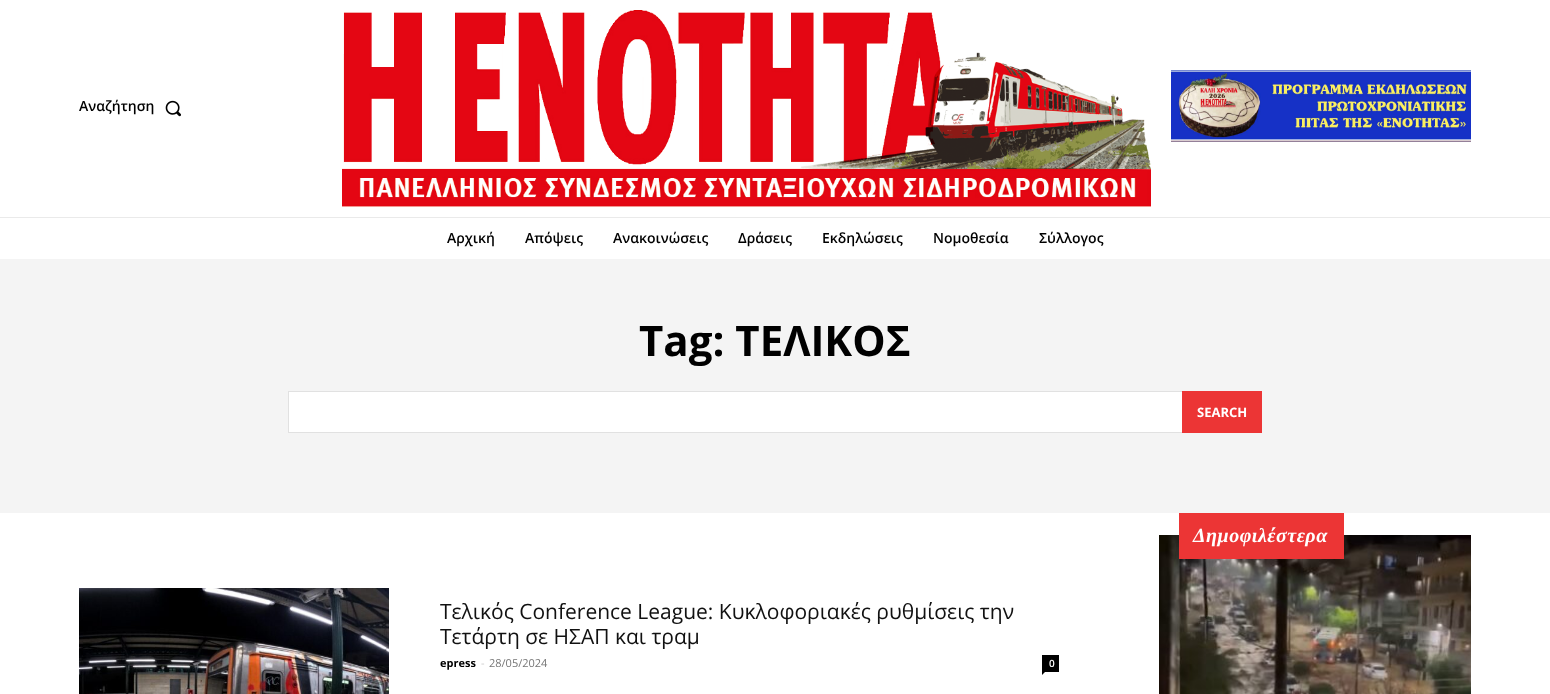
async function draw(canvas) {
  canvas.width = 1550;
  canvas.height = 694;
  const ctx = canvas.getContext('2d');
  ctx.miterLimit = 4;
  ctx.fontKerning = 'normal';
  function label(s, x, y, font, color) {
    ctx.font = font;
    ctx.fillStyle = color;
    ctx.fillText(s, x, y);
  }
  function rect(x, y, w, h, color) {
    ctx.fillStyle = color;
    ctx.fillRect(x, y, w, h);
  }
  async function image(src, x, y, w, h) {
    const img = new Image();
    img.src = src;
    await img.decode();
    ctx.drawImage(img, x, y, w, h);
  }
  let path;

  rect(0, 0, 1550, 694, '#fff');
  label('Αναζήτηση', 79, 111, '600 14px Open Sans', '#000');
  await image('assets/img1.png', 165, 100, 16, 17);
  await image('assets/img2.png', 342, 10, 809, 197);
  await image('assets/img3.png', 1171, 70, 300, 72);
  rect(0, 217, 1550, 1, '#eaeaea');
  label('Αρχική', 447, 243, '600 14px Open Sans', '#000');
  label('Απόψεις', 525, 243, '600 14px Open Sans', '#000');
  label('Ανακοινώσεις', 613, 243, '600 14px Open Sans', '#000');
  label('Δράσεις', 738, 243, '600 14px Open Sans', '#000');
  label('Εκδηλώσεις', 822, 243, '600 14px Open Sans', '#000');
  label('Νομοθεσία', 933, 243, '600 14px Open Sans', '#000');
  label('Σύλλογος', 1039, 243, '600 14px Open Sans', '#000');
  rect(0, 259, 1550, 254, '#f4f4f4');
  label('Tag: ΤΕΛΙΚΟΣ', 639, 356, 'bold 42px Open Sans', '#000');
  rect(289, 392, 893, 40, '#fff');
  ctx.strokeStyle = '#e1e1e1';
  ctx.strokeRect(288.5, 391.5, 973, 41);
  rect(1182, 391, 80, 42, '#ec3535');
  label('SEARCH', 1197, 417, 'bold 13px Open Sans', '#fff');
  await image('assets/img4.png', 1159, 535, 312, 159);
  rect(1179, 513, 165, 46, '#ec3535');
  ctx.letterSpacing = '0.5px';
  label('Δημοφιλέστερα', 1193, 542, 'italic bold 20px Liberation Serif', '#fff');
  await image('assets/img5.png', 79, 588, 310, 106);
  ctx.letterSpacing = '0px';
  label('Τελικός Conference League: Κυκλοφοριακές ρυθμίσεις την', 440, 619, '21px Open Sans', '#111');
  label('Τετάρτη σε ΗΣΑΠ και τραμ', 440, 644, '21px Open Sans', '#111');
  label('epress', 440, 667, 'bold 11px Open Sans', '#000');
  label('-', 481, 667, '11px Open Sans', '#ccc');
  label('28/05/2024', 489, 667, '11px Open Sans', '#767676');
  rect(1042, 655, 17, 17, '#000');
  label('0', 1049, 667, '600 10px Open Sans', '#fff');
  ctx.fillStyle = '#000';
  path = new Path2D('M1042 672H1045L1042 675Z');
  ctx.fill(path);
}

draw(document.querySelector('canvas'));
